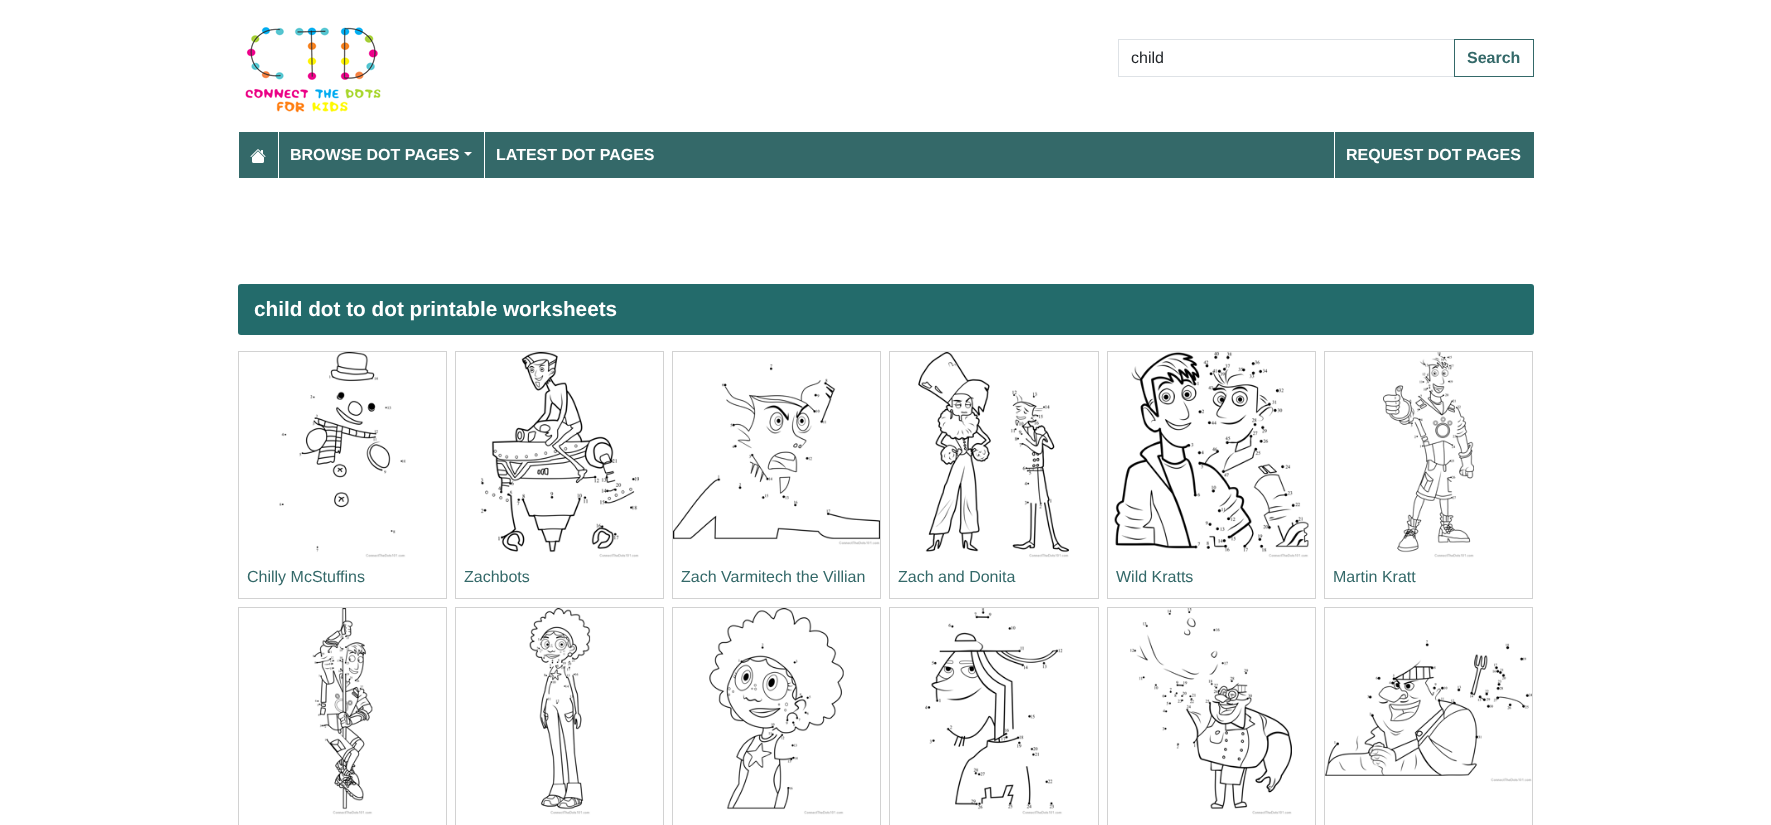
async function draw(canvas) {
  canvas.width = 1771;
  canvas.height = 825;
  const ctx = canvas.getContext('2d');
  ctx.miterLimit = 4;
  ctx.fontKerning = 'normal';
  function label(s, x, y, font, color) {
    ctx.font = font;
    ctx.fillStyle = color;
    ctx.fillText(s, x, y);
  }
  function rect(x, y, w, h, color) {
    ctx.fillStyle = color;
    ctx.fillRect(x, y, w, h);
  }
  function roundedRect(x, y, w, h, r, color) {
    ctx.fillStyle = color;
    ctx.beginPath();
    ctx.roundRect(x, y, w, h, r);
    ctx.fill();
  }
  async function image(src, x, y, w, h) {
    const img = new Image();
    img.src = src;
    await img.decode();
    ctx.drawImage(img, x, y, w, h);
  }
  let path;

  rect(0, 0, 1771, 825, '#fff');
  await image('assets/img1.png', 245, 27, 136, 86);
  ctx.strokeStyle = '#dee2e6';
  ctx.strokeRect(1118.5, 39.5, 336, 37);
  label('child', 1131, 63, '16px Liberation Sans', '#212529');
  ctx.strokeStyle = '#346969';
  ctx.strokeRect(1454.5, 39.5, 79, 37);
  label('Search', 1467, 63, 'bold 16px Liberation Sans', '#346969');
  rect(239, 132, 1295, 46, '#346969');
  await image('assets/img2.png', 250, 149, 16, 14);
  rect(278, 132, 1, 46, '#fff');
  label('BROWSE DOT PAGES', 290, 160, 'bold 16px Liberation Sans', '#fff');
  path = new Path2D('M464 152H472L468 156Z');
  ctx.fill(path);
  rect(484, 132, 1, 46, '#fff');
  label('LATEST DOT PAGES', 496, 160, 'bold 16px Liberation Sans', '#fff');
  rect(1334, 132, 1, 46, '#fff');
  label('REQUEST DOT PAGES', 1346, 160, 'bold 16px Liberation Sans', '#fff');
  roundedRect(238, 284, 1296, 51, 3, '#236b6b');
  label('child dot to dot printable worksheets', 254, 316, 'bold 20.75px Liberation Sans', '#fff');
  ctx.strokeStyle = '#d2d2d2';
  ctx.strokeRect(238.5, 351.5, 208, 247);
  await image('assets/img3.png', 279, 352, 127, 206);
  label('Chilly McStuffins', 247, 582, '16px Liberation Sans', '#346969');
  ctx.strokeRect(455.5, 351.5, 208, 247);
  await image('assets/img4.png', 480, 352, 159, 206);
  label('Zachbots', 464, 582, '16px Liberation Sans', '#346969');
  ctx.strokeRect(672.5, 351.5, 208, 247);
  await image('assets/img5.png', 673, 364, 207, 181);
  label('Zach Varmitech the Villian', 681, 582, '16px Liberation Sans', '#346969');
  ctx.strokeRect(889.5, 351.5, 209, 247);
  await image('assets/img6.png', 918, 352, 151, 206);
  label('Zach and Donita', 898, 582, '16px Liberation Sans', '#346969');
  ctx.strokeRect(1107.5, 351.5, 208, 247);
  await image('assets/img7.png', 1114, 352, 195, 206);
  label('Wild Kratts', 1116, 582, '16px Liberation Sans', '#346969');
  ctx.strokeRect(1324.5, 351.5, 208, 247);
  await image('assets/img8.png', 1383, 352, 91, 206);
  label('Martin Kratt', 1333, 582, '16px Liberation Sans', '#346969');
  ctx.strokeRect(238.5, 607.5, 208, 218);
  await image('assets/img9.png', 312, 608, 61, 207);
  ctx.strokeRect(455.5, 607.5, 208, 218);
  await image('assets/img10.png', 529, 608, 62, 207);
  ctx.strokeRect(672.5, 607.5, 208, 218);
  await image('assets/img11.png', 709, 608, 135, 207);
  ctx.strokeRect(889.5, 607.5, 209, 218);
  await image('assets/img12.png', 925, 608, 138, 207);
  ctx.strokeRect(1107.5, 607.5, 208, 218);
  await image('assets/img13.png', 1130, 608, 162, 207);
  ctx.strokeRect(1324.5, 607.5, 208, 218);
  await image('assets/img14.png', 1325, 640, 207, 142);
}

draw(document.querySelector('canvas'));
